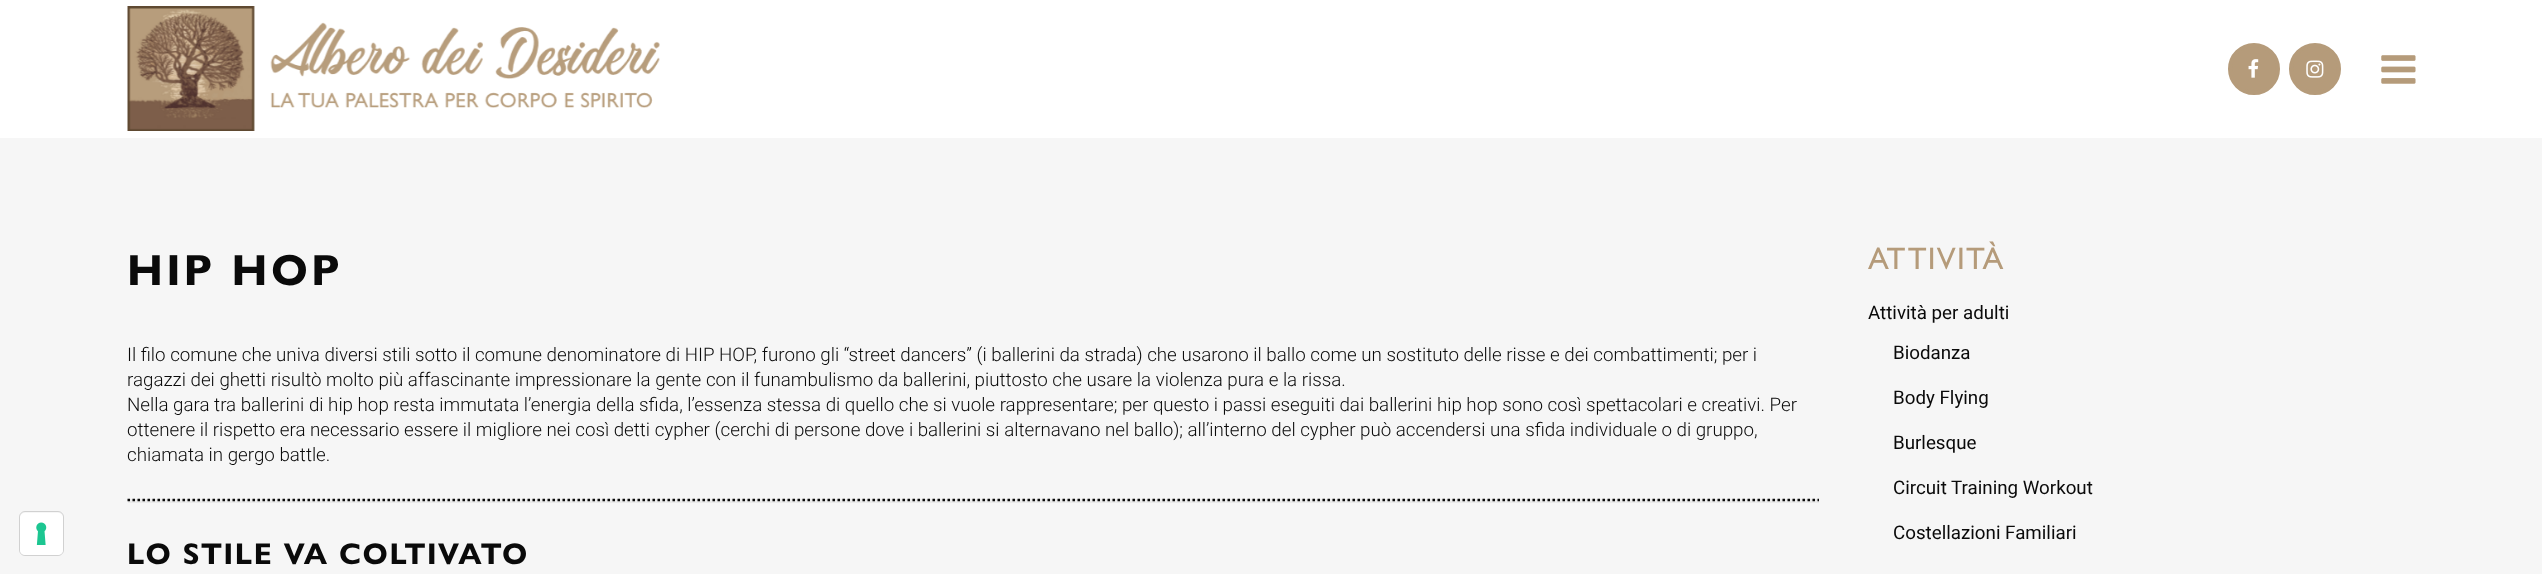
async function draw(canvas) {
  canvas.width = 2542;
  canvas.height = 574;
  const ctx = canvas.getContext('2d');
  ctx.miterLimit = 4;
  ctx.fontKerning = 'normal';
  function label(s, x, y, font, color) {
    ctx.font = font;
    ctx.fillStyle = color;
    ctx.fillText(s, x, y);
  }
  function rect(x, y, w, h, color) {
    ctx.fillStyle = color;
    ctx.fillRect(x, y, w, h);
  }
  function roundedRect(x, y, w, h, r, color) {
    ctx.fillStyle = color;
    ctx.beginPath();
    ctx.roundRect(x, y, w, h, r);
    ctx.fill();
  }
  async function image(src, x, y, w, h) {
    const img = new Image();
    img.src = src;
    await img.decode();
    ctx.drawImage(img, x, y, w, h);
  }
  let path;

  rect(0, 0, 2542, 574, '#f6f6f6');
  ctx.beginPath();
  ctx.roundRect(19.5, 511.5, 44, 44, 5.5);
  ctx.strokeStyle = '#d1d1d1';
  ctx.stroke();
  roundedRect(20, 513, 43, 42, 5, '#fff');
  await image('assets/img1.png', 36, 522, 11, 23);
  rect(0, 0, 2542, 138, '#fff');
  await image('assets/img2.png', 127, 6, 533, 125);
  ctx.fillStyle = '#b59b7a';
  ctx.beginPath();
  ctx.arc(2254, 69, 24, 0, 2 * Math.PI);
  ctx.fill();
  ctx.strokeStyle = '#b59b7a';
  ctx.lineWidth = 4;
  ctx.stroke();
  await image('assets/img3.png', 2248, 59, 11, 19);
  ctx.beginPath();
  ctx.arc(2315, 69, 24, 0, 2 * Math.PI);
  ctx.fill();
  ctx.stroke();
  await image('assets/img4.png', 2306, 60, 18, 18);
  await image('assets/img5.png', 2381, 55, 35, 29);
  ctx.letterSpacing = '3.5px';
  label('HIP HOP', 127, 285, 'bold 43.75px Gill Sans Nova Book', '#0a0a0a');
  ctx.letterSpacing = '0px';
  label('Il filo comune che univa diversi stili sotto il comune denominatore di HIP HOP, furono gli “street dancers” (i ballerini da strada) che usarono il ballo come un sostituto delle risse e dei combattimenti; per i', 127, 361, '300 18.75px Roboto', '#0a0a0a');
  label('ragazzi dei ghetti risultò molto più affascinante impressionare la gente con il funambulismo da ballerini, piuttosto che usare la violenza pura e la rissa.', 127, 386, '300 18.75px Roboto', '#0a0a0a');
  label('Nella gara tra ballerini di hip hop resta immutata l’energia della sfida, l’essenza stessa di quello che si vuole rappresentare; per questo i passi eseguiti dai ballerini hip hop sono così spettacolari e creativi. Per', 127, 411, '300 18.75px Roboto', '#0a0a0a');
  label('ottenere il rispetto era necessario essere il migliore nei così detti cypher (cerchi di persone dove i ballerini si alternavano nel ballo); all’interno del cypher può accendersi una sfida individuale o di gruppo,', 127, 436, '300 18.75px Roboto', '#0a0a0a');
  label('chiamata in gergo battle.', 127, 461, '300 18.75px Roboto', '#0a0a0a');
  rect(128, 499, 1691, 4, '#eaeaea');
  path = new Path2D('M127.5 500H1819');
  ctx.strokeStyle = '#0a0a0a';
  ctx.lineWidth = 2.5;
  ctx.setLineDash([2.5, 2.5]);
  ctx.stroke(path);
  ctx.letterSpacing = '1.6px';
  label('LO STILE VA COLTIVATO', 127, 564, 'bold 30px Gill Sans Nova Book', '#0a0a0a');
  ctx.letterSpacing = '1.25px';
  label('ATTIVITÀ', 1868, 269, '500 31.25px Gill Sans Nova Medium', '#b59b7a');
  ctx.letterSpacing = '0px';
  label('Attività per adulti', 1868, 319, '18.75px Roboto', '#0a0a0a');
  label('Biodanza', 1893, 359, '18.75px Roboto', '#0a0a0a');
  label('Body Flying', 1893, 404, '18.75px Roboto', '#0a0a0a');
  label('Burlesque', 1893, 449, '18.75px Roboto', '#0a0a0a');
  label('Circuit Training Workout', 1893, 494, '18.75px Roboto', '#0a0a0a');
  label('Costellazioni Familiari', 1893, 539, '18.75px Roboto', '#0a0a0a');
}

draw(document.querySelector('canvas'));
